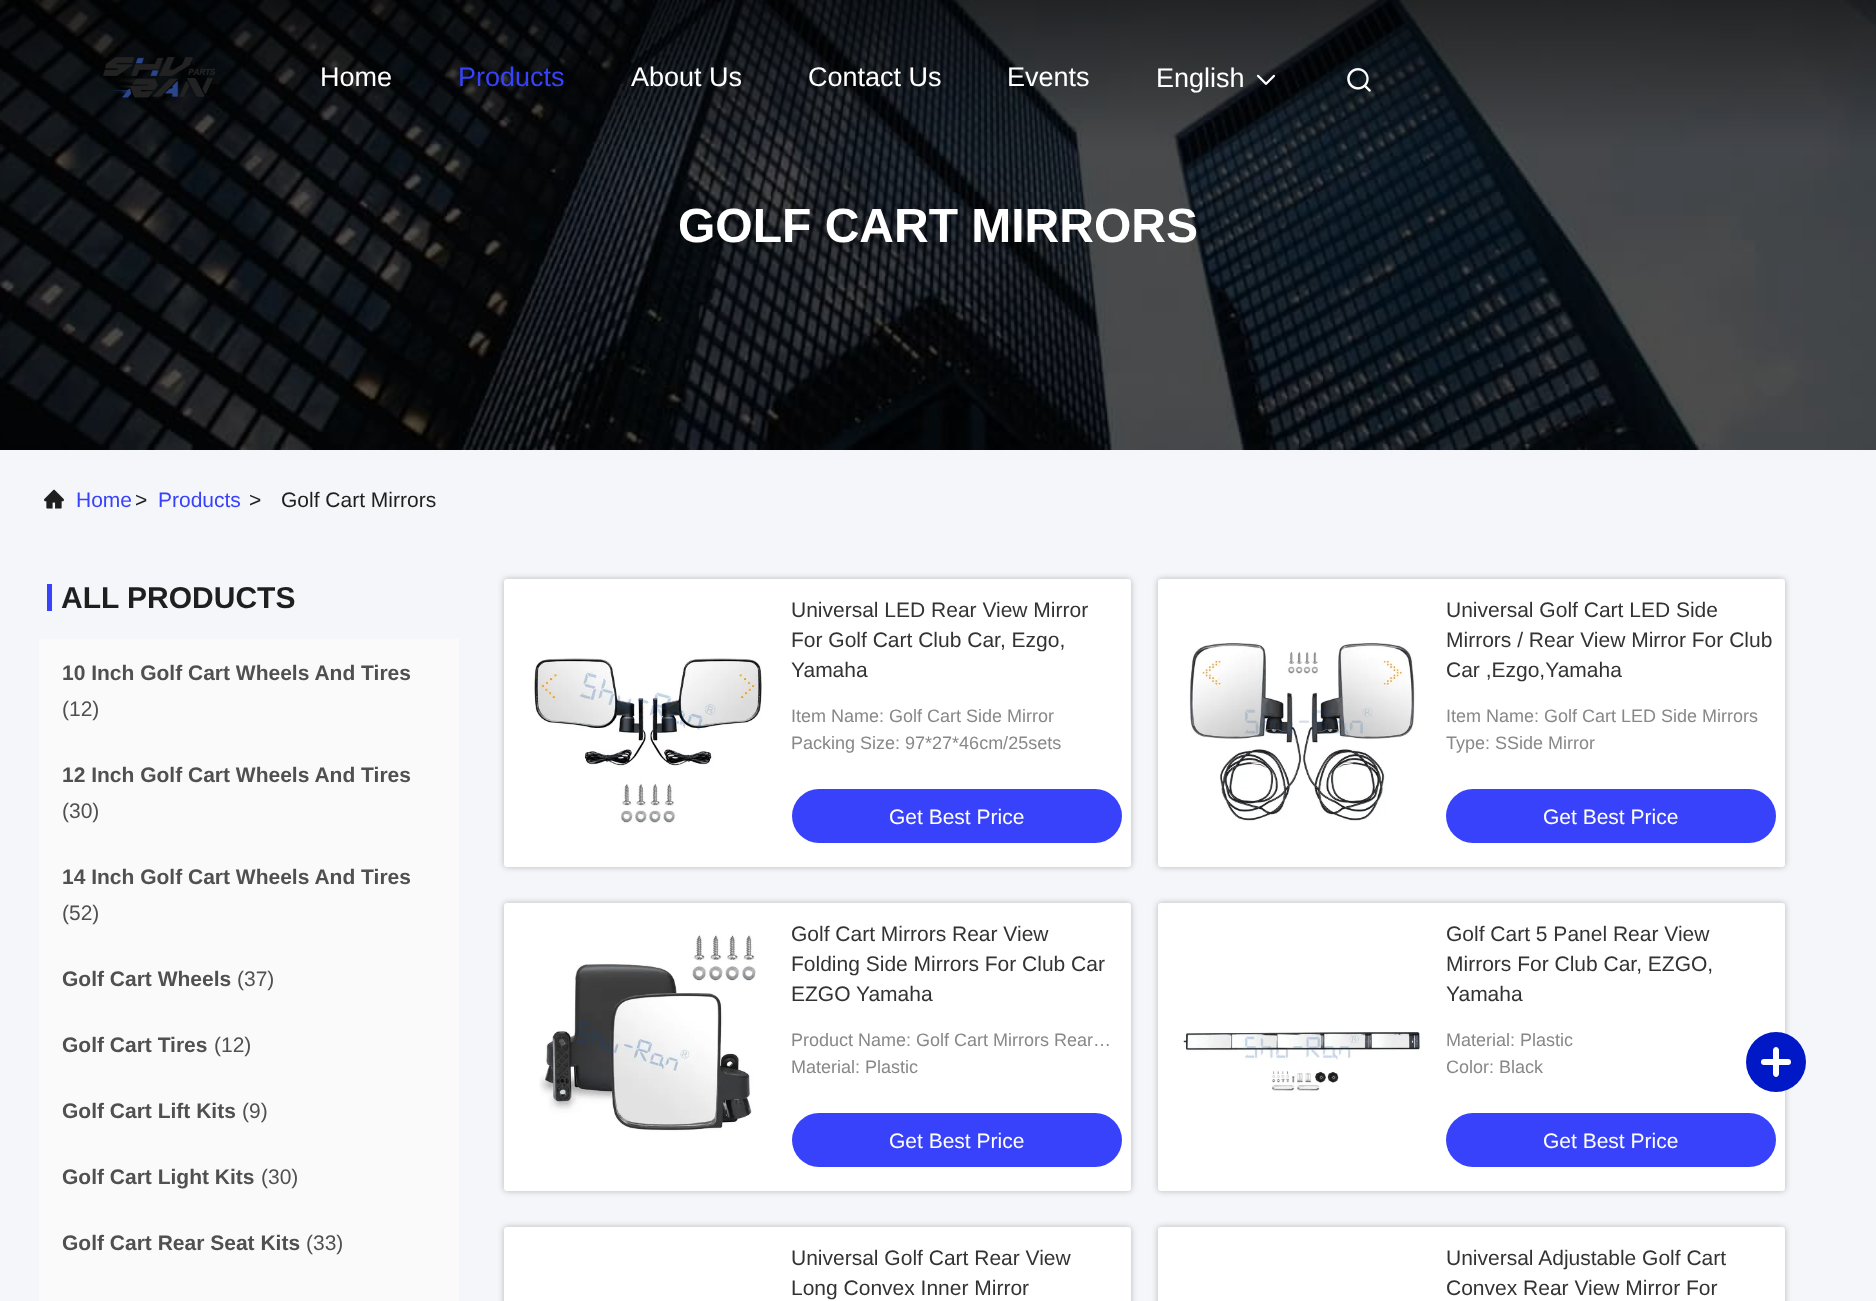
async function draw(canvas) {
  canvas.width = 1876;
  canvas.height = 1301;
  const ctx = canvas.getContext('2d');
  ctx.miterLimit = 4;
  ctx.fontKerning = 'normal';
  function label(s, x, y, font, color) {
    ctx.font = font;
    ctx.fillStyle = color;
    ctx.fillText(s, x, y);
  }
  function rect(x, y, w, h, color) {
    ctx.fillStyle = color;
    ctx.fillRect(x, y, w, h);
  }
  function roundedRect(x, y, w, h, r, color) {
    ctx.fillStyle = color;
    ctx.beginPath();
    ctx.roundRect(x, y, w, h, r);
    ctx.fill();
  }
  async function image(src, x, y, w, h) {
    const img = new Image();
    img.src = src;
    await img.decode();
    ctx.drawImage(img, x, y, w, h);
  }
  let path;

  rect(0, 0, 1876, 1301, '#f4f6f9');
  await image('assets/img4.png', 0, 0, 1876, 450);
  await image('assets/img1.png', 103, 57, 112, 41);
  label('Home', 320, 86, '27px Liberation Sans', '#fff');
  label('Products', 458, 86, '27px Liberation Sans', '#3742fa');
  label('About Us', 631, 86, '27px Liberation Sans', '#fff');
  label('Contact Us', 808, 86, '27px Liberation Sans', '#fff');
  label('Events', 1007, 86, '27px Liberation Sans', '#fff');
  label('English', 1156, 87, '27px Liberation Sans', '#fff');
  await image('assets/img2.png', 1256, 74, 19, 11);
  await image('assets/img3.png', 1347, 68, 24, 24);
  label('GOLF CART MIRRORS', 678, 242, 'bold 48px Liberation Sans', '#fff');
  await image('assets/img5.png', 44, 489, 20, 20);
  label('Home', 76, 507, '21px Liberation Sans', '#3742fa');
  label('>', 135, 507, '21px Liberation Sans', '#1f1f1f');
  label('Products', 158, 507, '21px Liberation Sans', '#3742fa');
  label('>', 249, 507, '21px Liberation Sans', '#1f1f1f');
  label('Golf Cart Mirrors', 281, 507, '21px Liberation Sans', '#1f1f1f');
  rect(47, 584, 5, 27, '#3742fa');
  label('ALL PRODUCTS', 61, 608, 'bold 30px Liberation Sans', '#1f1f1f');
  rect(39, 639, 420, 662, '#fafafa');
  label('10 Inch Golf Cart Wheels And Tires', 62, 680, 'bold 21px Liberation Sans', '#505050');
  label('(12)', 62, 716, '21px Liberation Sans', '#505050');
  label('12 Inch Golf Cart Wheels And Tires', 62, 782, 'bold 21px Liberation Sans', '#505050');
  label('(30)', 62, 818, '21px Liberation Sans', '#505050');
  label('14 Inch Golf Cart Wheels And Tires', 62, 884, 'bold 21px Liberation Sans', '#505050');
  label('(52)', 62, 920, '21px Liberation Sans', '#505050');
  label('Golf Cart Wheels', 62, 986, 'bold 21px Liberation Sans', '#505050');
  label('(37)', 237, 986, '21px Liberation Sans', '#505050');
  label('Golf Cart Tires', 62, 1052, 'bold 21px Liberation Sans', '#505050');
  label('(12)', 214, 1052, '21px Liberation Sans', '#505050');
  label('Golf Cart Lift Kits', 62, 1118, 'bold 21px Liberation Sans', '#505050');
  label('(9)', 242, 1118, '21px Liberation Sans', '#505050');
  label('Golf Cart Light Kits', 62, 1184, 'bold 21px Liberation Sans', '#505050');
  label('(30)', 261, 1184, '21px Liberation Sans', '#505050');
  label('Golf Cart Rear Seat Kits', 62, 1250, 'bold 21px Liberation Sans', '#505050');
  label('(33)', 306, 1250, '21px Liberation Sans', '#505050');
  ctx.fillStyle = '#00000040';
  ctx.filter = 'blur(3px)';
  ctx.beginPath();
  ctx.roundRect(504, 579, 627, 288, 3);
  ctx.fill();
  ctx.filter = 'none';
  roundedRect(504, 579, 627, 288, 3, '#fff');
  await image('assets/img6.png', 534, 658, 228, 166);
  label('Universal LED Rear View Mirror', 791, 617, '21px Liberation Sans', '#333');
  label('For Golf Cart Club Car, Ezgo,', 791, 647, '21px Liberation Sans', '#333');
  label('Yamaha', 791, 677, '21px Liberation Sans', '#333');
  label('Item Name: Golf Cart Side Mirror', 791, 722, '18px Liberation Sans', '#888');
  label('Packing Size: 97*27*46cm/25sets', 791, 749, '18px Liberation Sans', '#888');
  roundedRect(792, 789, 330, 54, 27, '#3742fa');
  label('Get Best Price', 889, 824, '21px Liberation Sans', '#fff');
  ctx.fillStyle = '#00000040';
  ctx.filter = 'blur(3px)';
  ctx.beginPath();
  ctx.roundRect(1158, 579, 627, 288, 3);
  ctx.fill();
  ctx.filter = 'none';
  roundedRect(1158, 579, 627, 288, 3, '#fff');
  await image('assets/img7.png', 1188, 643, 228, 178);
  label('Universal Golf Cart LED Side', 1446, 617, '21px Liberation Sans', '#333');
  label('Mirrors / Rear View Mirror For Club', 1446, 647, '21px Liberation Sans', '#333');
  label('Car ,Ezgo,Yamaha', 1446, 677, '21px Liberation Sans', '#333');
  label('Item Name: Golf Cart LED Side Mirrors', 1446, 722, '18px Liberation Sans', '#888');
  label('Type: SSide Mirror', 1446, 749, '18px Liberation Sans', '#888');
  roundedRect(1446, 789, 330, 54, 27, '#3742fa');
  label('Get Best Price', 1543, 824, '21px Liberation Sans', '#fff');
  ctx.fillStyle = '#00000040';
  ctx.filter = 'blur(3px)';
  ctx.beginPath();
  ctx.roundRect(504, 903, 627, 288, 3);
  ctx.fill();
  ctx.filter = 'none';
  roundedRect(504, 903, 627, 288, 3, '#fff');
  await image('assets/img8.png', 539, 934, 217, 198);
  label('Golf Cart Mirrors Rear View', 791, 941, '21px Liberation Sans', '#333');
  label('Folding Side Mirrors For Club Car', 791, 971, '21px Liberation Sans', '#333');
  label('EZGO Yamaha', 791, 1001, '21px Liberation Sans', '#333');
  label('Product Name: Golf Cart Mirrors Rear…', 791, 1046, '18px Liberation Sans', '#888');
  label('Material: Plastic', 791, 1073, '18px Liberation Sans', '#888');
  roundedRect(792, 1113, 330, 54, 27, '#3742fa');
  label('Get Best Price', 889, 1148, '21px Liberation Sans', '#fff');
  ctx.fillStyle = '#00000040';
  ctx.filter = 'blur(3px)';
  ctx.beginPath();
  ctx.roundRect(1158, 903, 627, 288, 3);
  ctx.fill();
  ctx.filter = 'none';
  roundedRect(1158, 903, 627, 288, 3, '#fff');
  await image('assets/img9.png', 1183, 1031, 238, 60);
  label('Golf Cart 5 Panel Rear View', 1446, 941, '21px Liberation Sans', '#333');
  label('Mirrors For Club Car, EZGO,', 1446, 971, '21px Liberation Sans', '#333');
  label('Yamaha', 1446, 1001, '21px Liberation Sans', '#333');
  label('Material: Plastic', 1446, 1046, '18px Liberation Sans', '#888');
  label('Color: Black', 1446, 1073, '18px Liberation Sans', '#888');
  roundedRect(1446, 1113, 330, 54, 27, '#3742fa');
  label('Get Best Price', 1543, 1148, '21px Liberation Sans', '#fff');
  ctx.fillStyle = '#00000040';
  ctx.filter = 'blur(3px)';
  ctx.beginPath();
  ctx.roundRect(504, 1227, 627, 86, 3);
  ctx.fill();
  ctx.filter = 'none';
  roundedRect(504, 1227, 627, 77, 3, '#fff');
  label('Universal Golf Cart Rear View', 791, 1265, '21px Liberation Sans', '#333');
  label('Long Convex Inner Mirror', 791, 1295, '21px Liberation Sans', '#333');
  ctx.fillStyle = '#00000040';
  ctx.filter = 'blur(3px)';
  ctx.beginPath();
  ctx.roundRect(1158, 1227, 627, 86, 3);
  ctx.fill();
  ctx.filter = 'none';
  roundedRect(1158, 1227, 627, 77, 3, '#fff');
  label('Universal Adjustable Golf Cart', 1446, 1265, '21px Liberation Sans', '#333');
  label('Convex Rear View Mirror For', 1446, 1295, '21px Liberation Sans', '#333');
  ctx.fillStyle = '#0018c6';
  ctx.beginPath();
  ctx.arc(1776, 1062, 30, 0, 2 * Math.PI);
  ctx.fill();
  roundedRect(1761, 1059, 30, 6, 3, '#fff');
  path = new Path2D('M1779 1050V1074C1779 1075.5 1777.5 1077 1776 1077C1774.5 1077 1773 1075.5 1773 1074V1050C1773 1048.5 1774.5 1047 1776 1047C1777.5 1047 1779 1048.5 1779 1050Z');
  ctx.fill(path);
}

draw(document.querySelector('canvas'));
